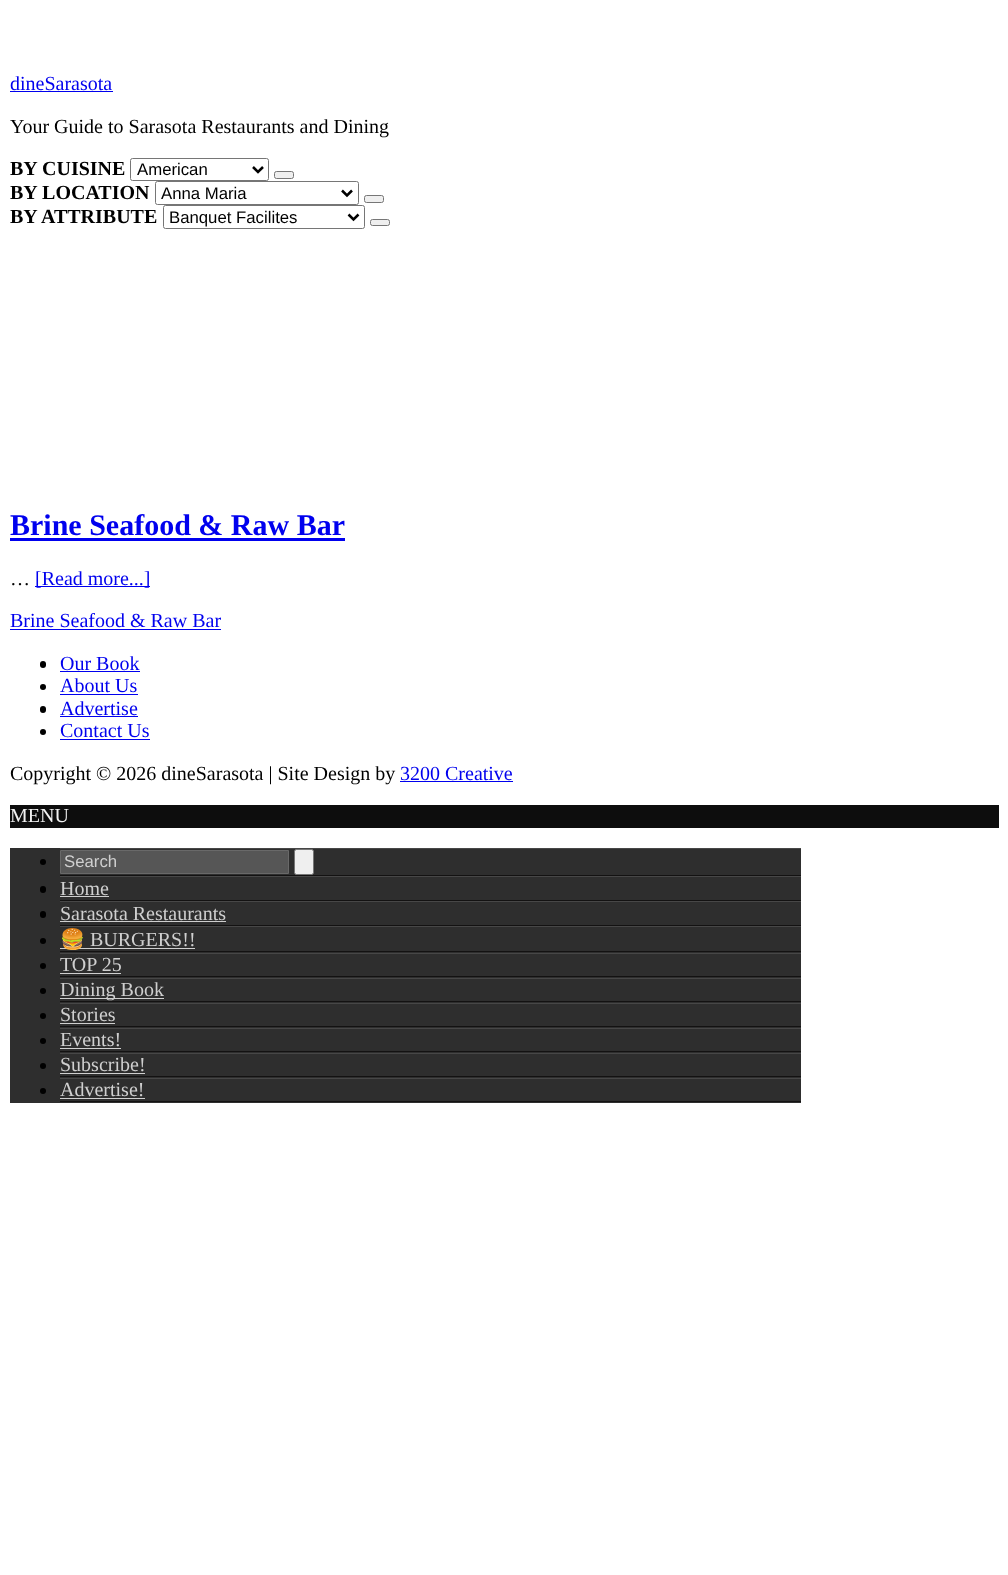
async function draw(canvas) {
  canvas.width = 1008;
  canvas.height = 1575;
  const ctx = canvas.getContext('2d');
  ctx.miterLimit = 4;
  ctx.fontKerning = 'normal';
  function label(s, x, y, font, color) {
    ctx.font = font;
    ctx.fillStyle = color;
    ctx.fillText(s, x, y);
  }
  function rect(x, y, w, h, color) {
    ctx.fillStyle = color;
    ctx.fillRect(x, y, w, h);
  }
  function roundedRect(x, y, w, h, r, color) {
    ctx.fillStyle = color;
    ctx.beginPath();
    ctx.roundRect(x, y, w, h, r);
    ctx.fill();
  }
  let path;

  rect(0, 0, 1008, 1575, '#fff');
  label('dineSarasota', 10, 90, '20px Liberation Serif', '#00e');
  rect(10, 91, 103, 1, '#00e');
  label('Your Guide to Sarasota Restaurants and Dining', 10, 133, '20px Liberation Serif', '#000');
  label('BY CUISINE', 10, 175, 'bold 20px Liberation Serif', '#000');
  ctx.beginPath();
  ctx.roundRect(130.5, 158.5, 138, 22, 2);
  ctx.strokeStyle = '#767676';
  ctx.stroke();
  path = new Path2D('M253 167L258 172L263 167');
  ctx.strokeStyle = '#000';
  ctx.lineWidth = 2.5;
  ctx.stroke(path);
  label('American', 137, 175, '16.75px Liberation Sans', '#000');
  ctx.fillStyle = '#efefef';
  ctx.beginPath();
  ctx.roundRect(274.5, 171.5, 19, 7, 2);
  ctx.fill();
  ctx.strokeStyle = '#767676';
  ctx.lineWidth = 1;
  ctx.stroke();
  label('BY LOCATION', 10, 199, 'bold 20px Liberation Serif', '#000');
  ctx.beginPath();
  ctx.roundRect(155.5, 181.5, 203, 23, 2);
  ctx.stroke();
  path = new Path2D('M342 190.5L347 195.5L352 190.5');
  ctx.strokeStyle = '#000';
  ctx.lineWidth = 2.5;
  ctx.stroke(path);
  label('Anna Maria', 161, 199, '16.75px Liberation Sans', '#000');
  ctx.fillStyle = '#efefef';
  ctx.beginPath();
  ctx.roundRect(364.5, 195.5, 19, 7, 2);
  ctx.fill();
  ctx.strokeStyle = '#767676';
  ctx.lineWidth = 1;
  ctx.stroke();
  label('BY ATTRIBUTE', 10, 223, 'bold 20px Liberation Serif', '#000');
  ctx.beginPath();
  ctx.roundRect(163.5, 205.5, 201, 23, 2);
  ctx.stroke();
  path = new Path2D('M348.5 214.5L353.5 219.5L358.5 214.5');
  ctx.strokeStyle = '#000';
  ctx.lineWidth = 2.5;
  ctx.stroke(path);
  label('Banquet Facilites', 169, 223, '16.75px Liberation Sans', '#000');
  ctx.fillStyle = '#efefef';
  ctx.beginPath();
  ctx.roundRect(370.5, 219.5, 19, 6, 2);
  ctx.fill();
  ctx.strokeStyle = '#767676';
  ctx.lineWidth = 1;
  ctx.stroke();
  label('Brine Seafood & Raw Bar', 10, 535, 'bold 30px Liberation Serif', '#00e');
  rect(10, 538, 335, 3, '#00e');
  label('…', 10, 585, '20px Liberation Serif', '#000');
  rect(35, 586, 115, 1, '#00e');
  label('[Read more...]', 35, 585, '20px Liberation Serif', '#00e');
  label('Brine Seafood & Raw Bar', 10, 627, '20px Liberation Serif', '#00e');
  rect(10, 629, 211, 1, '#00e');
  roundedRect(40, 661, 6, 7, 3, '#000');
  label('Our Book', 60, 670, '20px Liberation Serif', '#00e');
  rect(60, 671, 80, 1, '#00e');
  ctx.fillStyle = '#000';
  ctx.beginPath();
  ctx.arc(43, 687, 3, 0, 2 * Math.PI);
  ctx.fill();
  label('About Us', 60, 692, '20px Liberation Serif', '#00e');
  rect(60, 694, 78, 1, '#00e');
  roundedRect(40, 706, 6, 7, 3, '#000');
  label('Advertise', 60, 715, '20px Liberation Serif', '#00e');
  rect(60, 716, 78, 1, '#00e');
  ctx.fillStyle = '#000';
  ctx.beginPath();
  ctx.arc(43, 732, 3, 0, 2 * Math.PI);
  ctx.fill();
  label('Contact Us', 60, 737, '20px Liberation Serif', '#00e');
  rect(60, 739, 90, 1, '#00e');
  label('Copyright © 2026 dineSarasota | Site Design by', 10, 780, '20px Liberation Serif', '#000');
  label('3200 Creative', 400, 780, '20px Liberation Serif', '#00e');
  rect(400, 781, 113, 1, '#00e');
  rect(10, 805, 989, 23, '#0d0d0d');
  label('MENU', 10, 822, '20px Liberation Serif', '#f2f2f2');
  rect(10, 848, 791, 255, '#2e2e2e');
  rect(60, 848, 741, 1, '#474747');
  rect(60, 875, 741, 1, '#131212');
  ctx.fillStyle = '#000';
  ctx.beginPath();
  ctx.arc(43, 862, 3, 0, 2 * Math.PI);
  ctx.fill();
  ctx.fillStyle = '#565656';
  ctx.beginPath();
  ctx.rect(60.5, 850.5, 228, 23);
  ctx.fill();
  ctx.strokeStyle = '#696969';
  ctx.stroke();
  label('Search', 64, 867, '16.75px Liberation Sans', '#cfcfcf');
  ctx.fillStyle = '#efefef';
  ctx.beginPath();
  ctx.roundRect(294.5, 849.5, 19, 25, 2);
  ctx.fill();
  ctx.strokeStyle = '#767676';
  ctx.stroke();
  rect(60, 876, 741, 1, '#474747');
  rect(60, 900, 741, 1, '#131212');
  roundedRect(40, 886, 6, 7, 3, '#000');
  label('Home', 60, 895, '20px Liberation Serif', '#cfcfcf');
  rect(60, 896, 49, 1, '#cfcfcf');
  rect(60, 901, 741, 1, '#474747');
  rect(60, 925, 741, 1, '#131212');
  roundedRect(40, 911, 6, 7, 3, '#000');
  label('Sarasota Restaurants', 60, 920, '20px Liberation Serif', '#cfcfcf');
  rect(60, 921, 166, 1, '#cfcfcf');
  rect(60, 926, 741, 1, '#474747');
  rect(60, 951, 741, 1, '#131212');
  ctx.fillStyle = '#000';
  ctx.beginPath();
  ctx.arc(43, 941, 3, 0, 2 * Math.PI);
  ctx.fill();
  rect(60, 948, 135, 1, '#cfcfcf');
  label('🍔', 60, 946, '20px Noto Color Emoji', '#cfcfcf');
  label('BURGERS!!', 90, 946, '20px Liberation Serif', '#cfcfcf');
  rect(60, 953, 741, 1, '#474747');
  rect(60, 976, 741, 1, '#131212');
  ctx.fillStyle = '#000';
  ctx.beginPath();
  ctx.arc(43, 966, 3, 0, 2 * Math.PI);
  ctx.fill();
  label('TOP 25', 60, 971, '20px Liberation Serif', '#cfcfcf');
  rect(60, 973, 61, 1, '#cfcfcf');
  rect(60, 978, 741, 1, '#474747');
  rect(60, 1001, 741, 1, '#131212');
  ctx.fillStyle = '#000';
  ctx.beginPath();
  ctx.arc(43, 991, 3, 0, 2 * Math.PI);
  ctx.fill();
  rect(60, 998, 104, 1, '#cfcfcf');
  label('Dining Book', 60, 996, '20px Liberation Serif', '#cfcfcf');
  rect(60, 1003, 741, 1, '#474747');
  rect(60, 1026, 741, 1, '#131212');
  ctx.fillStyle = '#000';
  ctx.beginPath();
  ctx.arc(43, 1016, 3, 0, 2 * Math.PI);
  ctx.fill();
  label('Stories', 60, 1021, '20px Liberation Serif', '#cfcfcf');
  rect(60, 1023, 55, 1, '#cfcfcf');
  rect(60, 1028, 741, 1, '#474747');
  rect(60, 1051, 741, 1, '#131212');
  ctx.fillStyle = '#000';
  ctx.beginPath();
  ctx.arc(43, 1041, 3, 0, 2 * Math.PI);
  ctx.fill();
  label('Events!', 60, 1046, '20px Liberation Serif', '#cfcfcf');
  rect(60, 1048, 61, 1, '#cfcfcf');
  rect(60, 1053, 741, 1, '#474747');
  rect(60, 1076, 741, 1, '#131212');
  ctx.fillStyle = '#000';
  ctx.beginPath();
  ctx.arc(43, 1066, 3, 0, 2 * Math.PI);
  ctx.fill();
  label('Subscribe!', 60, 1071, '20px Liberation Serif', '#cfcfcf');
  rect(60, 1073, 85, 1, '#cfcfcf');
  rect(60, 1078, 741, 1, '#474747');
  rect(60, 1101, 741, 1, '#131212');
  ctx.fillStyle = '#000';
  ctx.beginPath();
  ctx.arc(43, 1091, 3, 0, 2 * Math.PI);
  ctx.fill();
  label('Advertise!', 60, 1096, '20px Liberation Serif', '#cfcfcf');
  rect(60, 1098, 85, 1, '#cfcfcf');
}

draw(document.querySelector('canvas'));
